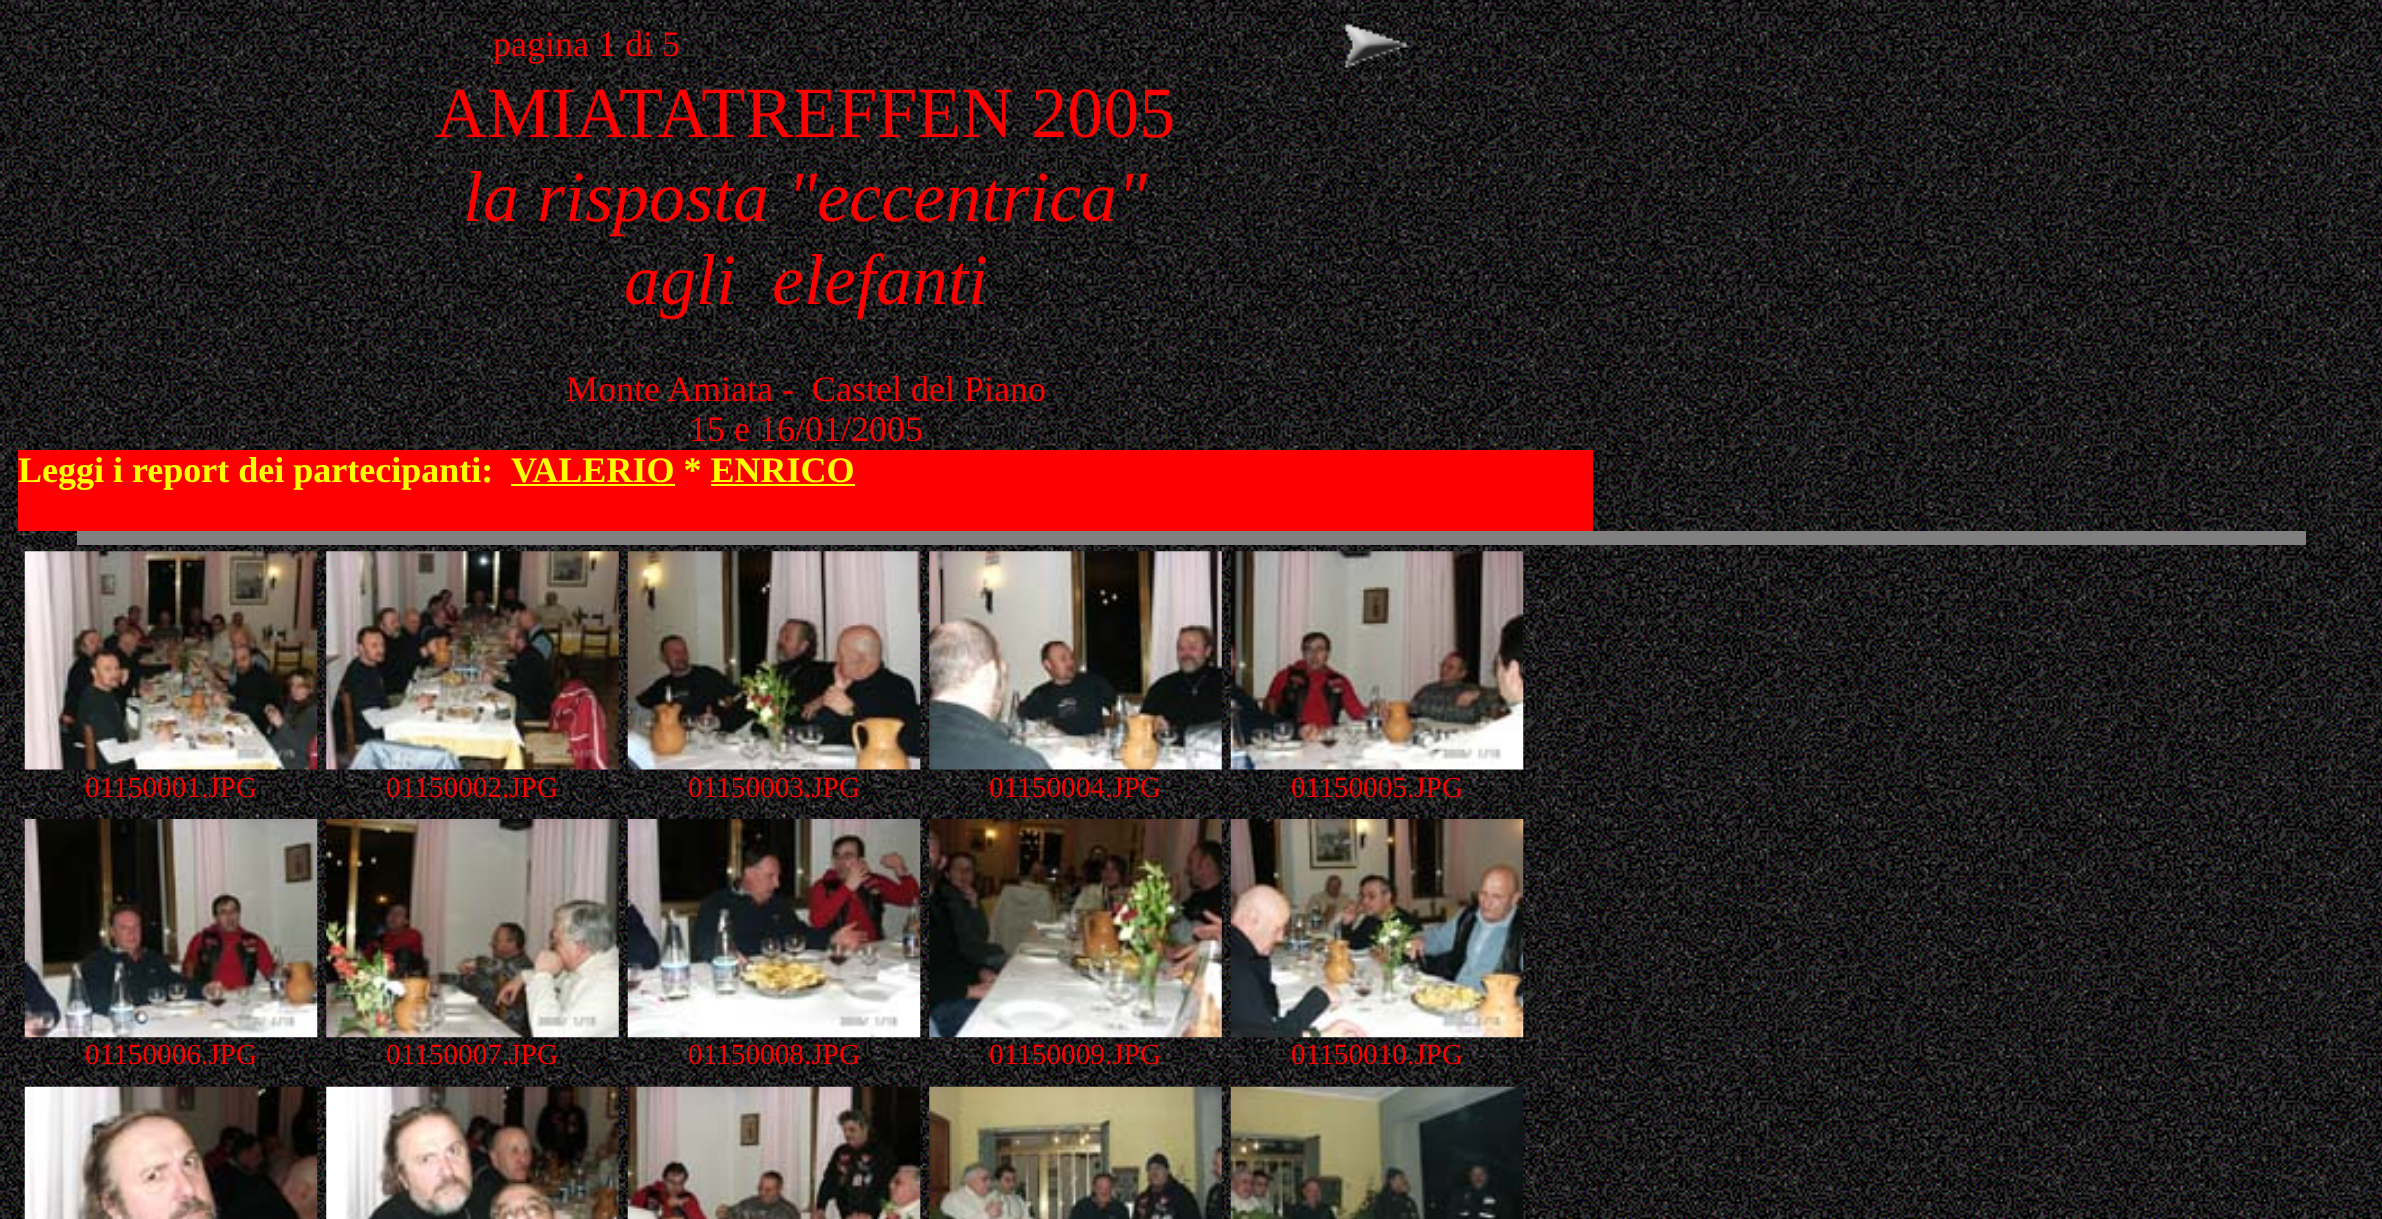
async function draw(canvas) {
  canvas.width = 2382;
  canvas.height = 1219;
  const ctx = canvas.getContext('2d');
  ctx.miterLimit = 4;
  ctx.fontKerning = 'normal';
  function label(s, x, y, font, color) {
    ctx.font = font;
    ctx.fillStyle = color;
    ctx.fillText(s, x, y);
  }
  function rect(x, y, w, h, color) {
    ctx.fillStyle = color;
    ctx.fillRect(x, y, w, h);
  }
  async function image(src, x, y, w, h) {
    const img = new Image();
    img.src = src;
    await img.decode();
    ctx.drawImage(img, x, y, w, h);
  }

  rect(0, 0, 2382, 1219, '#fff');
  await image('assets/img1.png', 0, 0, 2382, 1219);
  label('pagina 1 di 5', 493, 56, '36px Liberation Serif', '#f00');
  await image('assets/img2.png', 1345, 24, 62, 44);
  label('AMIATATREFFEN 2005', 435, 137, '72px Liberation Serif', '#f00');
  label('la risposta "eccentrica"', 463, 221, 'italic 72px Liberation Serif', '#f00');
  label('agli', 624, 304, 'italic 72px Liberation Serif', '#f00');
  label('elefanti', 772, 304, 'italic 72px Liberation Serif', '#f00');
  label('Monte', 566, 401, '36px Liberation Serif', '#f00');
  label('Amiata -  Castel del Piano', 667, 401, '36px Liberation Serif', '#f00');
  label('15 e 16/01/2005', 689, 441, '36px Liberation Serif', '#f00');
  rect(18, 450, 1575, 81, '#f00');
  label('Leggi i report dei partecipanti:', 18, 482, 'bold 36px Liberation Serif', '#ff0');
  label('VALERIO * ENRICO', 511, 482, 'bold 36px Liberation Serif', '#ff0');
  rect(511, 484, 164, 2, '#ff0');
  rect(711, 484, 144, 2, '#ff0');
  rect(77, 531, 2229, 14, '#808080');
  await image('assets/img3.png', 24, 551, 294, 219);
  label('01150001.JPG', 85, 797, '29.25px Liberation Serif', '#f00');
  await image('assets/img4.png', 326, 551, 293, 219);
  label('01150002.JPG', 386, 797, '29.25px Liberation Serif', '#f00');
  await image('assets/img5.png', 627, 551, 294, 219);
  label('01150003.JPG', 688, 797, '29.25px Liberation Serif', '#f00');
  await image('assets/img6.png', 929, 551, 293, 219);
  label('01150004.JPG', 989, 797, '29.25px Liberation Serif', '#f00');
  await image('assets/img7.png', 1230, 551, 294, 219);
  label('01150005.JPG', 1291, 797, '29.25px Liberation Serif', '#f00');
  await image('assets/img8.png', 24, 819, 294, 219);
  label('01150006.JPG', 85, 1064, '29.25px Liberation Serif', '#f00');
  await image('assets/img9.png', 326, 819, 293, 219);
  label('01150007.JPG', 386, 1064, '29.25px Liberation Serif', '#f00');
  await image('assets/img10.png', 627, 819, 294, 219);
  label('01150008.JPG', 688, 1064, '29.25px Liberation Serif', '#f00');
  await image('assets/img11.png', 929, 819, 293, 219);
  label('01150009.JPG', 989, 1064, '29.25px Liberation Serif', '#f00');
  await image('assets/img12.png', 1230, 819, 294, 219);
  label('01150010.JPG', 1291, 1064, '29.25px Liberation Serif', '#f00');
  await image('assets/img13.png', 24, 1086, 294, 133);
  await image('assets/img14.png', 326, 1086, 293, 133);
  await image('assets/img15.png', 627, 1086, 294, 133);
  await image('assets/img16.png', 929, 1086, 293, 133);
  await image('assets/img17.png', 1230, 1086, 294, 133);
}

draw(document.querySelector('canvas'));
